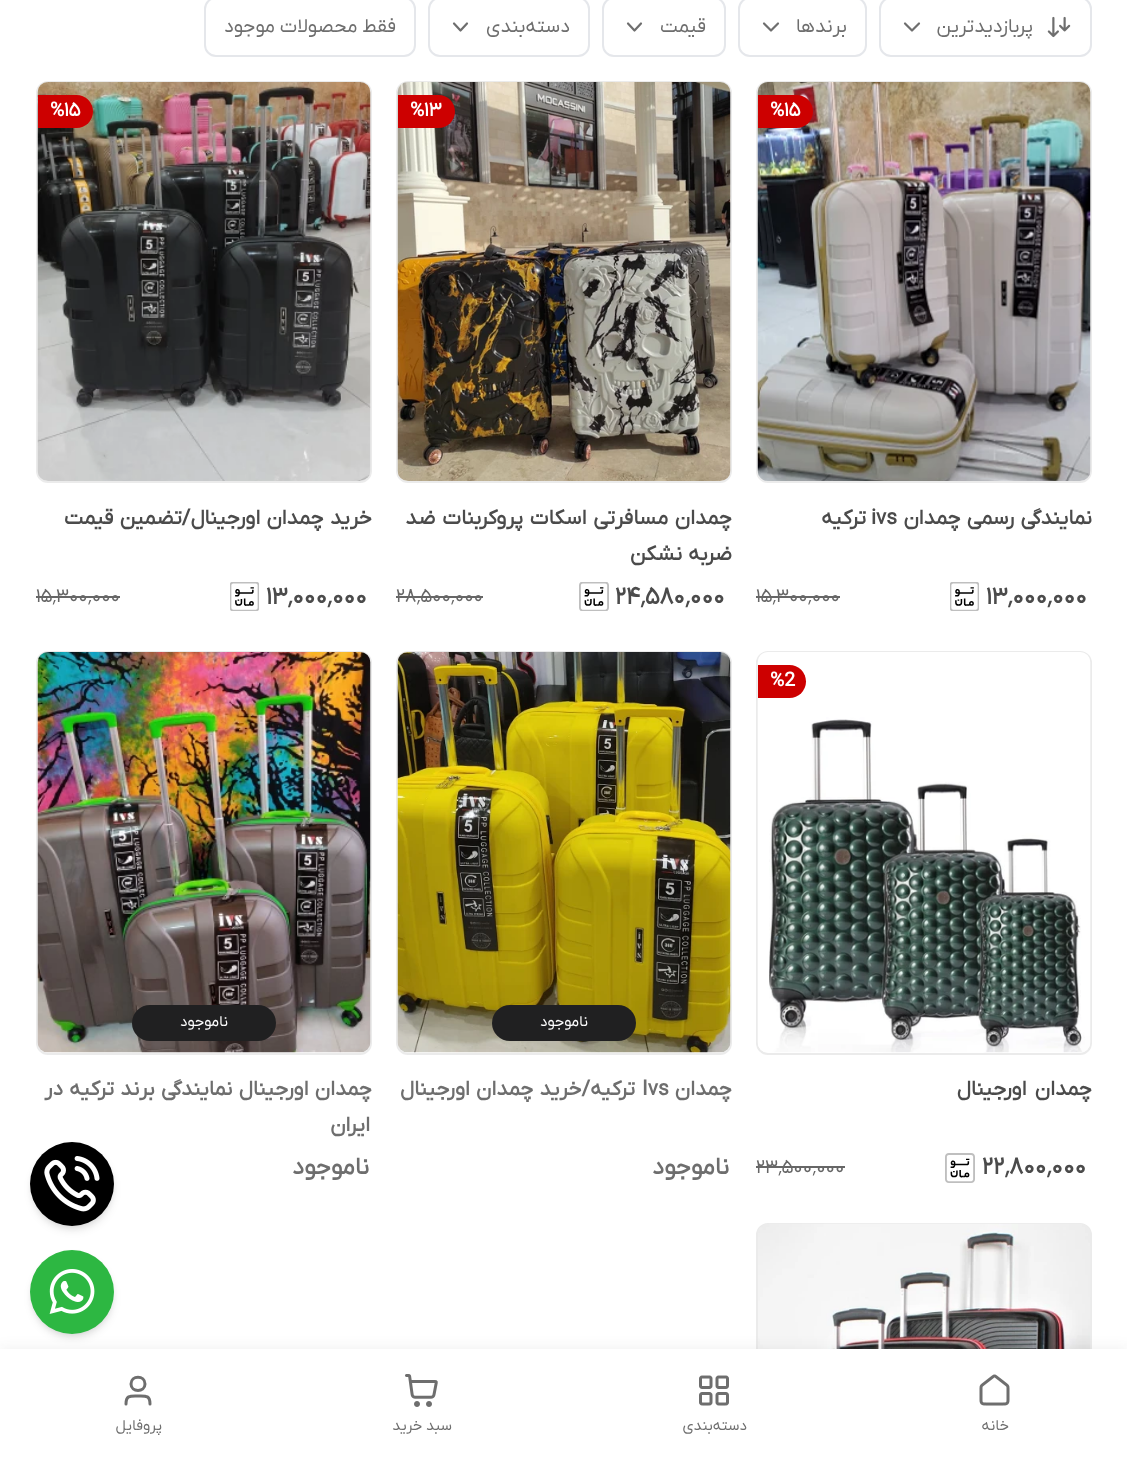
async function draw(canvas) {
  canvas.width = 1127;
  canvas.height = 1462;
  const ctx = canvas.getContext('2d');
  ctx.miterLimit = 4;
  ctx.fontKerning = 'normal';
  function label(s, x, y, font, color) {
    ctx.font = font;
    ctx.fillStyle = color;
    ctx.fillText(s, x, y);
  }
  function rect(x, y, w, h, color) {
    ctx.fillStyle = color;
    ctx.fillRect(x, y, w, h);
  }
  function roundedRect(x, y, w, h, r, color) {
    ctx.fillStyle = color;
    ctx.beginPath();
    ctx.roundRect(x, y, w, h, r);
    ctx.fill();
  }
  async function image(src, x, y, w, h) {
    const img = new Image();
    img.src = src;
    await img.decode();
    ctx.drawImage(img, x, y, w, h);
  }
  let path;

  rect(0, 0, 1127, 1462, '#fff');
  ctx.beginPath();
  ctx.roundRect(880, -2, 211, 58, 11);
  ctx.strokeStyle = '#e5e7eb';
  ctx.lineWidth = 2;
  ctx.stroke();
  await image('assets/img1.png', 1047, 16, 24, 22);
  ctx.direction = 'rtl';
  label('پربازدیدترین', 1033, 32, '19.5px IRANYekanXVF', '#6e6e6e');
  path = new Path2D('M905 23.5L912 30.5L919 23.5');
  ctx.strokeStyle = '#6e6e6e';
  ctx.lineWidth = 2.2;
  ctx.lineCap = 'round';
  ctx.lineJoin = 'round';
  ctx.stroke(path);
  ctx.beginPath();
  ctx.roundRect(739, -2, 127, 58, 11);
  ctx.strokeStyle = '#e5e7eb';
  ctx.lineWidth = 2;
  ctx.lineJoin = 'miter';
  ctx.stroke();
  label('برندها', 847, 32, '19.5px IRANYekanXVF', '#6e6e6e');
  path = new Path2D('M764 23.5L771 30.5L778 23.5');
  ctx.strokeStyle = '#6e6e6e';
  ctx.lineWidth = 2.2;
  ctx.lineJoin = 'round';
  ctx.stroke(path);
  ctx.beginPath();
  ctx.roundRect(603, -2, 122, 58, 11);
  ctx.strokeStyle = '#e5e7eb';
  ctx.lineWidth = 2;
  ctx.lineJoin = 'miter';
  ctx.stroke();
  label('قیمت', 706, 32, '19.5px IRANYekanXVF', '#6e6e6e');
  path = new Path2D('M628 23.5L634.5 30.5L641 23.5');
  ctx.strokeStyle = '#6e6e6e';
  ctx.lineWidth = 2.2;
  ctx.lineJoin = 'round';
  ctx.stroke(path);
  ctx.beginPath();
  ctx.roundRect(429, -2, 160, 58, 11);
  ctx.strokeStyle = '#e5e7eb';
  ctx.lineWidth = 2;
  ctx.lineJoin = 'miter';
  ctx.stroke();
  label('دسته‌بندی', 570, 32, '19.5px IRANYekanXVF', '#6e6e6e');
  path = new Path2D('M454 23.5L460.5 30.5L467 23.5');
  ctx.strokeStyle = '#6e6e6e';
  ctx.lineWidth = 2.2;
  ctx.lineJoin = 'round';
  ctx.stroke(path);
  ctx.beginPath();
  ctx.roundRect(205, -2, 210, 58, 11);
  ctx.strokeStyle = '#e5e7eb';
  ctx.lineWidth = 2;
  ctx.lineJoin = 'miter';
  ctx.stroke();
  label('فقط محصولات موجود', 396, 32, '19.5px IRANYekanXVF', '#6e6e6e');
  ctx.beginPath();
  ctx.roundRect(757, 82, 334, 400, 11);
  ctx.strokeStyle = '#ebebeb';
  ctx.stroke();
  await image('assets/img2.png', 757, 82, 334, 399);
  ctx.fillStyle = '#cd0000';
  ctx.beginPath();
  ctx.roundRect(758, 95, 55, 33, [0, 16.5, 16.5, 0]);
  ctx.fill();
  ctx.direction = 'ltr';
  label('15', 784, 116, 'bold 19.5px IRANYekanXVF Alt', '#fff');
  label('%', 770, 116, 'bold 19.5px IRANYekanXVF', '#fff');
  ctx.wordSpacing = '1px';
  ctx.direction = 'rtl';
  label('نمایندگی رسمی چمدان', 1092, 524, 'bold 21px IRANYekanXVF', '#4b4b4b');
  ctx.wordSpacing = '0px';
  ctx.direction = 'ltr';
  label('ivs', 871, 524, 'bold 21px IRANYekanXVF', '#4b4b4b');
  ctx.direction = 'rtl';
  label('ترکیه', 866, 524, 'bold 21px IRANYekanXVF', '#4b4b4b');
  ctx.direction = 'ltr';
  label('۱۳٬۰۰۰٬۰۰۰', 986, 604, 'bold 24px IRANYekanXVF', '#4b4b4b');
  await image('assets/img3.png', 950, 582, 29, 29);
  label('۱۵٬۳۰۰٬۰۰۰', 756, 602, '19.5px IRANYekanXVF', '#666');
  rect(756, 596, 84, 2, '#666');
  ctx.beginPath();
  ctx.roundRect(397, 82, 334, 400, 11);
  ctx.stroke();
  await image('assets/img4.png', 397, 82, 334, 399);
  ctx.fillStyle = '#cd0000';
  ctx.beginPath();
  ctx.roundRect(398, 95, 57, 33, [0, 16.5, 16.5, 0]);
  ctx.fill();
  label('13', 424, 116, 'bold 19.5px IRANYekanXVF Alt', '#fff');
  label('%', 410, 116, 'bold 19.5px IRANYekanXVF', '#fff');
  ctx.wordSpacing = '1.5px';
  ctx.direction = 'rtl';
  label('چمدان مسافرتی اسکات پروکربنات ضد', 732, 524, 'bold 21px IRANYekanXVF', '#4b4b4b');
  ctx.wordSpacing = '1px';
  label('ضربه نشکن', 732, 560, 'bold 21px IRANYekanXVF', '#4b4b4b');
  ctx.wordSpacing = '0px';
  ctx.direction = 'ltr';
  label('۲۴٬۵۸۰٬۰۰۰', 615, 604, 'bold 24px IRANYekanXVF', '#4b4b4b');
  await image('assets/img5.png', 579, 582, 30, 29);
  label('۲۸٬۵۰۰٬۰۰۰', 396, 602, '19.5px IRANYekanXVF', '#666');
  rect(396, 596, 87, 2, '#666');
  ctx.beginPath();
  ctx.roundRect(37, 82, 334, 400, 11);
  ctx.stroke();
  await image('assets/img6.png', 37, 82, 334, 399);
  ctx.fillStyle = '#cd0000';
  ctx.beginPath();
  ctx.roundRect(38, 95, 55, 33, [0, 16.5, 16.5, 0]);
  ctx.fill();
  label('15', 64, 116, 'bold 19.5px IRANYekanXVF Alt', '#fff');
  label('%', 50, 116, 'bold 19.5px IRANYekanXVF', '#fff');
  ctx.wordSpacing = '1px';
  ctx.direction = 'rtl';
  label('خرید چمدان اورجینال/تضمین قیمت', 372, 524, 'bold 21px IRANYekanXVF', '#4b4b4b');
  ctx.wordSpacing = '0px';
  ctx.direction = 'ltr';
  label('۱۳٬۰۰۰٬۰۰۰', 266, 604, 'bold 24px IRANYekanXVF', '#4b4b4b');
  await image('assets/img3.png', 230, 582, 29, 29);
  label('۱۵٬۳۰۰٬۰۰۰', 36, 602, '19.5px IRANYekanXVF', '#666');
  rect(36, 596, 84, 2, '#666');
  ctx.beginPath();
  ctx.roundRect(757, 652, 334, 402, 11);
  ctx.stroke();
  await image('assets/img7.png', 757, 652, 334, 401);
  ctx.fillStyle = '#cd0000';
  ctx.beginPath();
  ctx.roundRect(758, 665, 48, 33, [0, 16.5, 16.5, 0]);
  ctx.fill();
  label('%2', 770, 686, 'bold 19.5px IRANYekanXVF', '#fff');
  ctx.wordSpacing = '3px';
  ctx.direction = 'rtl';
  label('چمدان اورجینال', 1092, 1095, 'bold 21px IRANYekanXVF', '#4b4b4b');
  ctx.wordSpacing = '0px';
  ctx.direction = 'ltr';
  label('۲۲٬۸۰۰٬۰۰۰', 982, 1174, 'bold 24px IRANYekanXVF', '#4b4b4b');
  await image('assets/img8.png', 945, 1153, 30, 30);
  label('۲۳٬۵۰۰٬۰۰۰', 756, 1173, '19.5px IRANYekanXVF', '#666');
  rect(756, 1166, 89, 2, '#666');
  ctx.beginPath();
  ctx.roundRect(397, 652, 334, 402, 11);
  ctx.stroke();
  await image('assets/img9.png', 397, 652, 334, 401);
  roundedRect(492, 1005, 144, 36, 18, '#202021');
  ctx.direction = 'rtl';
  label('ناموجود', 588, 1026, '15px IRANYekanXVF', '#fff');
  label('چمدان', 732, 1095, 'bold 21px IRANYekanXVF', '#6e6e6e');
  ctx.direction = 'ltr';
  label('Ivs', 642, 1095, 'bold 21px IRANYekanXVF', '#6e6e6e');
  ctx.wordSpacing = '1px';
  ctx.direction = 'rtl';
  label('ترکیه/خرید چمدان اورجینال', 635, 1095, 'bold 21px IRANYekanXVF', '#6e6e6e');
  ctx.wordSpacing = '0px';
  label('ناموجود', 729, 1174, 'bold 24px IRANYekanXVF', '#6e6e6e');
  ctx.beginPath();
  ctx.roundRect(37, 652, 334, 402, 11);
  ctx.stroke();
  await image('assets/img10.png', 37, 652, 334, 401);
  roundedRect(132, 1005, 144, 36, 18, '#202021');
  label('ناموجود', 228, 1026, '15px IRANYekanXVF', '#fff');
  ctx.wordSpacing = '1px';
  label('چمدان اورجینال نمایندگی برند ترکیه در', 372, 1095, 'bold 21px IRANYekanXVF', '#6e6e6e');
  ctx.wordSpacing = '0px';
  label('ایران', 370, 1131, 'bold 21px IRANYekanXVF', '#6e6e6e');
  label('ناموجود', 369, 1174, 'bold 24px IRANYekanXVF', '#6e6e6e');
  ctx.beginPath();
  ctx.roundRect(757, 1224, 334, 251, 11);
  ctx.stroke();
  await image('assets/img11.png', 758, 1223, 333, 126);
  ctx.fillStyle = '#0000001a';
  ctx.filter = 'blur(3px)';
  ctx.beginPath();
  ctx.roundRect(33, 1148, 78, 78, 39);
  ctx.fill();
  ctx.filter = 'none';
  ctx.filter = 'blur(4.5px)';
  ctx.beginPath();
  ctx.roundRect(32, 1149, 81, 81, 40.5);
  ctx.fill();
  ctx.filter = 'none';
  ctx.fillStyle = '#000';
  ctx.beginPath();
  ctx.arc(72, 1184, 42, 0, 2 * Math.PI);
  ctx.fill();
  await image('assets/img12.png', 44, 1156, 56, 56);
  ctx.fillStyle = '#0000001a';
  ctx.filter = 'blur(3px)';
  ctx.beginPath();
  ctx.roundRect(33, 1256, 78, 78, 39);
  ctx.fill();
  ctx.filter = 'none';
  ctx.fillStyle = '#2125290d';
  ctx.filter = 'blur(6px)';
  ctx.beginPath();
  ctx.rect(0, 1346, 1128, 114);
  ctx.fill();
  ctx.filter = 'none';
  rect(0, 1349, 1127, 113, '#fff');
  ctx.fillStyle = '#0000001a';
  ctx.filter = 'blur(4.5px)';
  ctx.beginPath();
  ctx.roundRect(32, 1257, 81, 81, 40.5);
  ctx.fill();
  ctx.filter = 'none';
  ctx.fillStyle = '#2db742';
  ctx.beginPath();
  ctx.arc(72, 1292, 42, 0, 2 * Math.PI);
  ctx.fill();
  await image('assets/img13.png', 49, 1269, 46, 45);
  await image('assets/img14.png', 979, 1374, 31, 32);
  label('خانه', 1009, 1430, '15px IRANYekanXVF', '#6e6e6e');
  await image('assets/img15.png', 699, 1375, 30, 31);
  label('دسته‌بندی', 747, 1430, '15px IRANYekanXVF', '#6e6e6e');
  await image('assets/img16.png', 405, 1374, 33, 33);
  label('سبد خرید', 452, 1430, '15px IRANYekanXVF', '#6e6e6e');
  path = new Path2D('M150 1404C150 1395 145.5 1396 138 1396C130.5 1396 126 1395 126 1404M145 1384C145 1392.5 131 1392.5 131 1384C131 1375 145 1375 145 1384');
  ctx.strokeStyle = '#6e6e6e';
  ctx.lineWidth = 3;
  ctx.lineJoin = 'round';
  ctx.stroke(path);
  label('پروفایل', 162, 1430, '15px IRANYekanXVF', '#6e6e6e');
}

draw(document.querySelector('canvas'));
